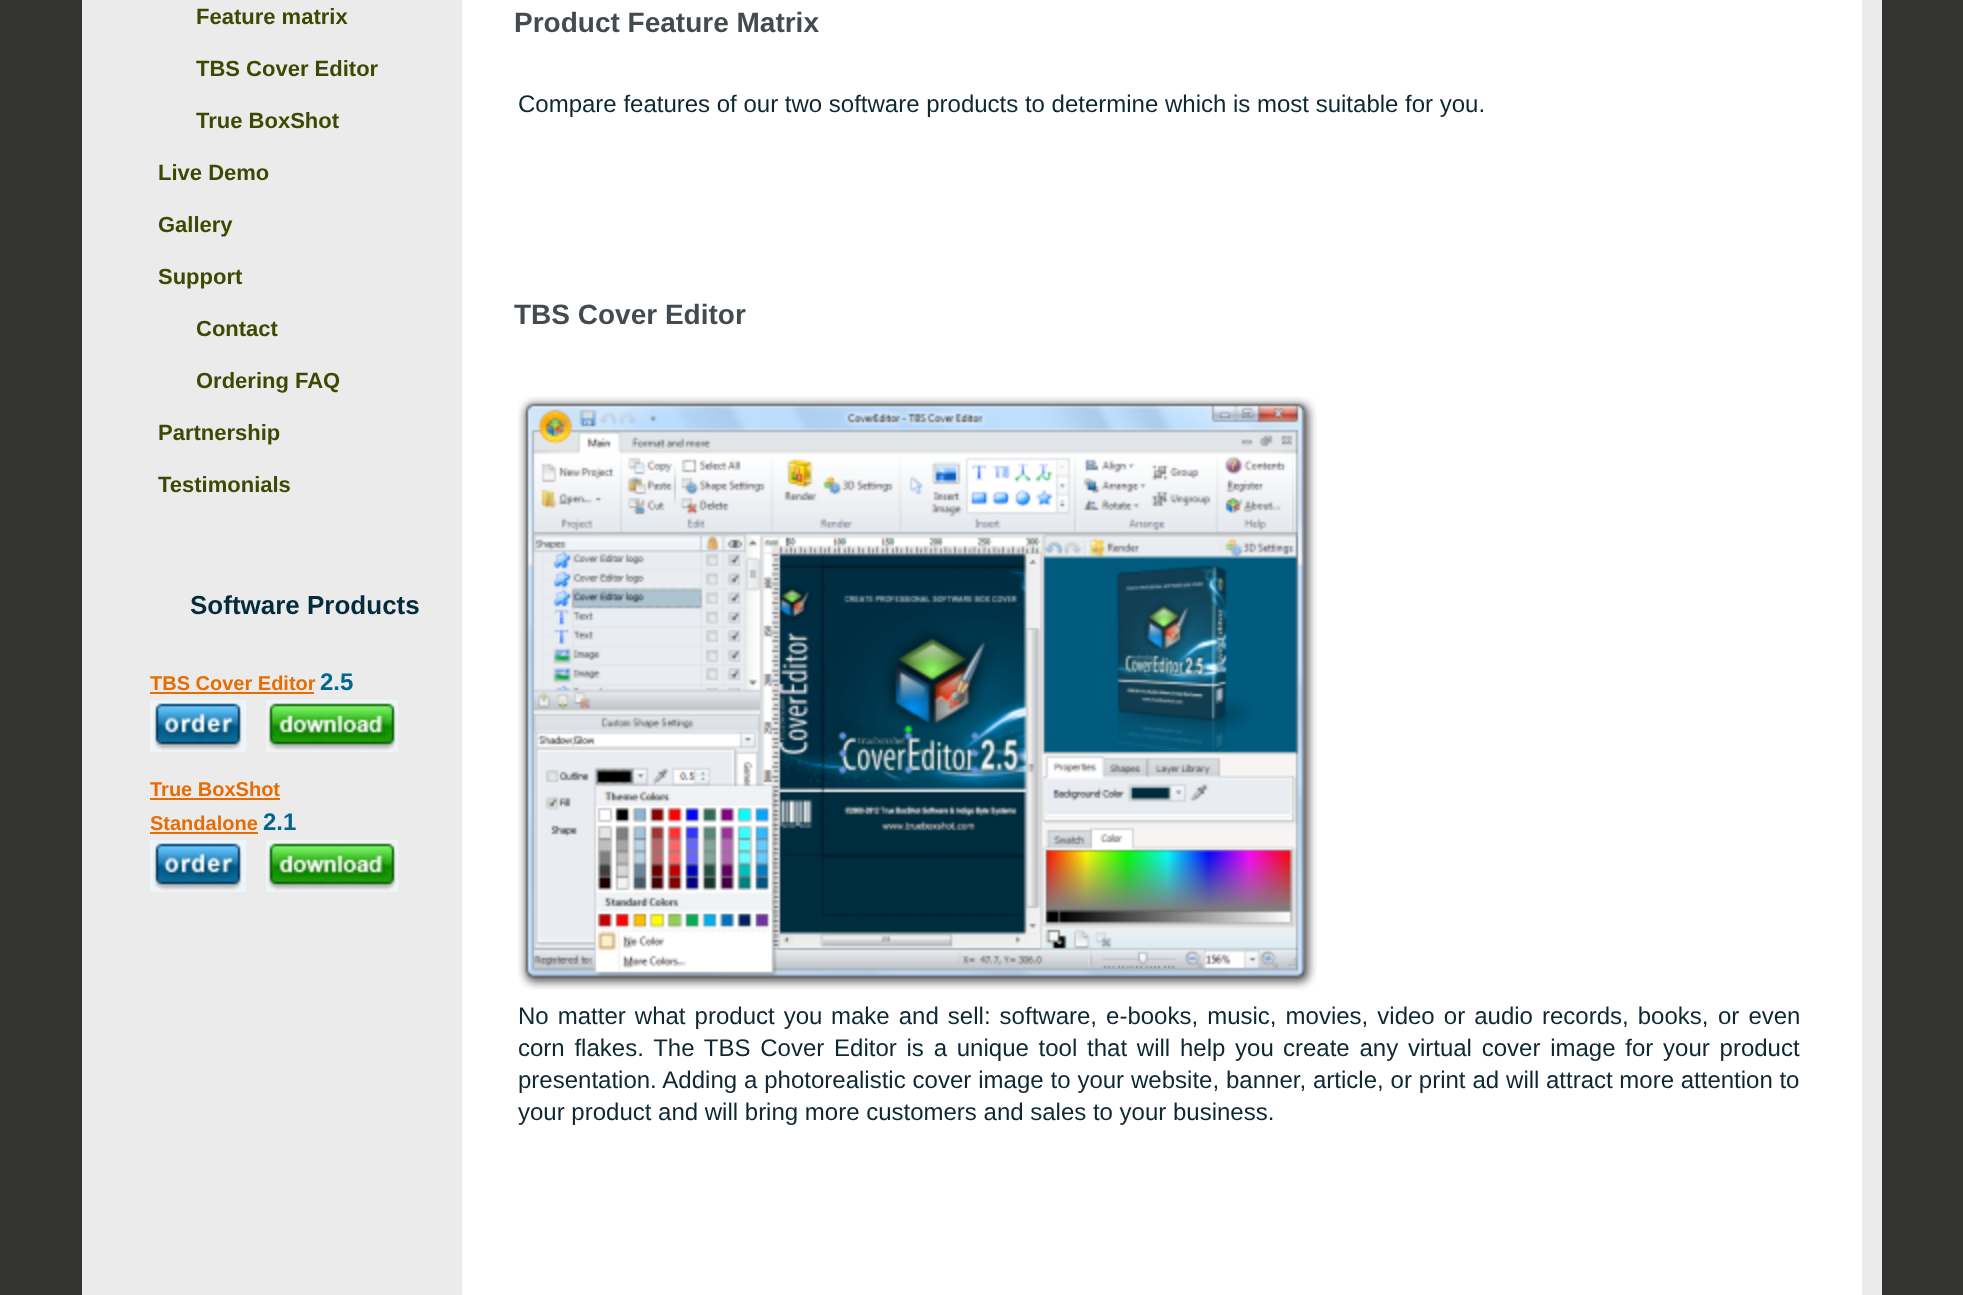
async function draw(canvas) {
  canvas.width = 1963;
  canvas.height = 1295;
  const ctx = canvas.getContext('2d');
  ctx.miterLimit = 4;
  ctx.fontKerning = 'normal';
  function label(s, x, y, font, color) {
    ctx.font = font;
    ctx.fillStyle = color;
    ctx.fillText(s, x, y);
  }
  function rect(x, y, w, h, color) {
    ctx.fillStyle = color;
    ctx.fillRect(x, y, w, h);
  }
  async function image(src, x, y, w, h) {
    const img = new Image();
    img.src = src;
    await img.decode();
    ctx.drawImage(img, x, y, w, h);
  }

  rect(0, 0, 1963, 1295, '#333331');
  rect(82, 0, 1800, 1295, '#ebebeb');
  label('Feature matrix', 196, 24, 'bold 22px Liberation Sans', '#3d4902');
  label('TBS Cover Editor', 196, 76, 'bold 22px Liberation Sans', '#3d4902');
  label('True BoxShot', 196, 128, 'bold 22px Liberation Sans', '#3d4902');
  label('Live Demo', 158, 180, 'bold 22px Liberation Sans', '#3d4902');
  label('Gallery', 158, 232, 'bold 22px Liberation Sans', '#3d4902');
  label('Support', 158, 284, 'bold 22px Liberation Sans', '#3d4902');
  label('Contact', 196, 336, 'bold 22px Liberation Sans', '#3d4902');
  label('Ordering FAQ', 196, 388, 'bold 22px Liberation Sans', '#3d4902');
  label('Partnership', 158, 440, 'bold 22px Liberation Sans', '#3d4902');
  label('Testimonials', 158, 492, 'bold 22px Liberation Sans', '#3d4902');
  label('Software Products', 190, 614, 'bold 26px Liberation Sans', '#032b3c');
  label('TBS Cover Editor', 150, 690, 'bold 20px Liberation Sans', '#e56d02');
  rect(150, 692, 164, 2, '#e56d02');
  label('2.5', 320, 690, 'bold 24px Liberation Sans', '#006690');
  await image('assets/img1.png', 150, 700, 96, 52);
  await image('assets/img2.png', 266, 700, 132, 52);
  label('True BoxShot', 150, 796, 'bold 20px Liberation Sans', '#e56d02');
  rect(150, 798, 130, 2, '#e56d02');
  label('Standalone', 150, 830, 'bold 20px Liberation Sans', '#e56d02');
  rect(150, 832, 108, 2, '#e56d02');
  label('2.1', 263, 830, 'bold 24px Liberation Sans', '#006690');
  await image('assets/img1.png', 150, 840, 96, 52);
  await image('assets/img2.png', 266, 840, 132, 52);
  rect(462, 0, 1400, 1295, '#fff');
  label('Product Feature Matrix', 514, 32, 'bold 28px Liberation Sans', '#444b4e');
  label('Compare features of our two software products to determine which is most suitable for you.', 518, 112, '24px Liberation Sans', '#0e2732');
  label('TBS Cover Editor', 514, 324, 'bold 28px Liberation Sans', '#444b4e');
  await image('assets/img3.png', 518, 396, 799, 594);
  ctx.wordSpacing = '2.4px';
  label('No matter what product you', 518, 1024, '24px Liberation Sans', '#0e2732');
  label('make and sell: software, e-books, music, movies, video or audio records, books,', 831, 1024, '24px Liberation Sans', '#0e2732');
  label('or even', 1718, 1024, '24px Liberation Sans', '#0e2732');
  ctx.wordSpacing = '3.1px';
  label('corn flakes. The TBS Cover Editor is a unique tool that will help you', 518, 1056, '24px Liberation Sans', '#0e2732');
  label('create any virtual cover image for your product', 1283, 1056, '24px Liberation Sans', '#0e2732');
  ctx.wordSpacing = '0.25px';
  label('presentation. Adding a photorealistic cover image to your website, banner, article, or print ad will', 518, 1088, '24px Liberation Sans', '#0e2732');
  ctx.wordSpacing = '0px';
  label('attract more attention to', 1546, 1088, '24px Liberation Sans', '#0e2732');
  label('your product and will bring more customers and sales to your business.', 518, 1120, '24px Liberation Sans', '#0e2732');
}

draw(document.querySelector('canvas'));
